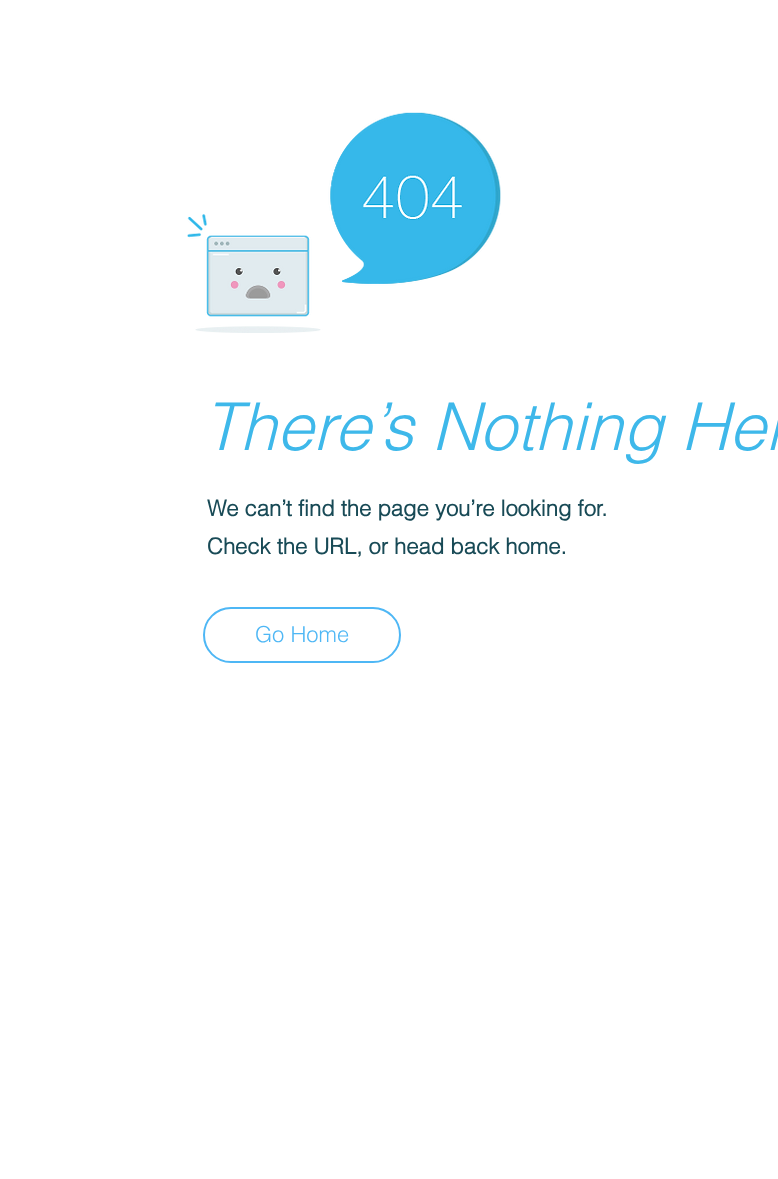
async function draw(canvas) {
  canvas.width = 778;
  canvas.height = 1179;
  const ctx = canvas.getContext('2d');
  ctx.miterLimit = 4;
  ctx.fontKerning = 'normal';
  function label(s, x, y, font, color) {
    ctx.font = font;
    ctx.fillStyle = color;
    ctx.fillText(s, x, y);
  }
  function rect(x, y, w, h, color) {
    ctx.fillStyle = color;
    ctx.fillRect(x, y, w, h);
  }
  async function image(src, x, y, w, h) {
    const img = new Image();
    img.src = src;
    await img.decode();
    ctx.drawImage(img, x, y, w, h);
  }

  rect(0, 0, 778, 1179, '#fff');
  await image('assets/img1.png', 187, 112, 314, 221);
  label('There’s Nothing Her', 203, 450, 'italic 300 66px helvetica', '#3eb8ea');
  label('We can’t find the page you’re looking for.', 207, 516, 'bold 22px helvetica', '#184a56');
  label('Check the URL, or head back home.', 207, 554, 'bold 22px helvetica', '#184a56');
  ctx.beginPath();
  ctx.roundRect(204, 608, 196, 54, 27);
  ctx.strokeStyle = '#4eb7f5';
  ctx.lineWidth = 2;
  ctx.stroke();
  label('Go Home', 255, 642, '300 22px helvetica', '#4eb7f5');
}

draw(document.querySelector('canvas'));
